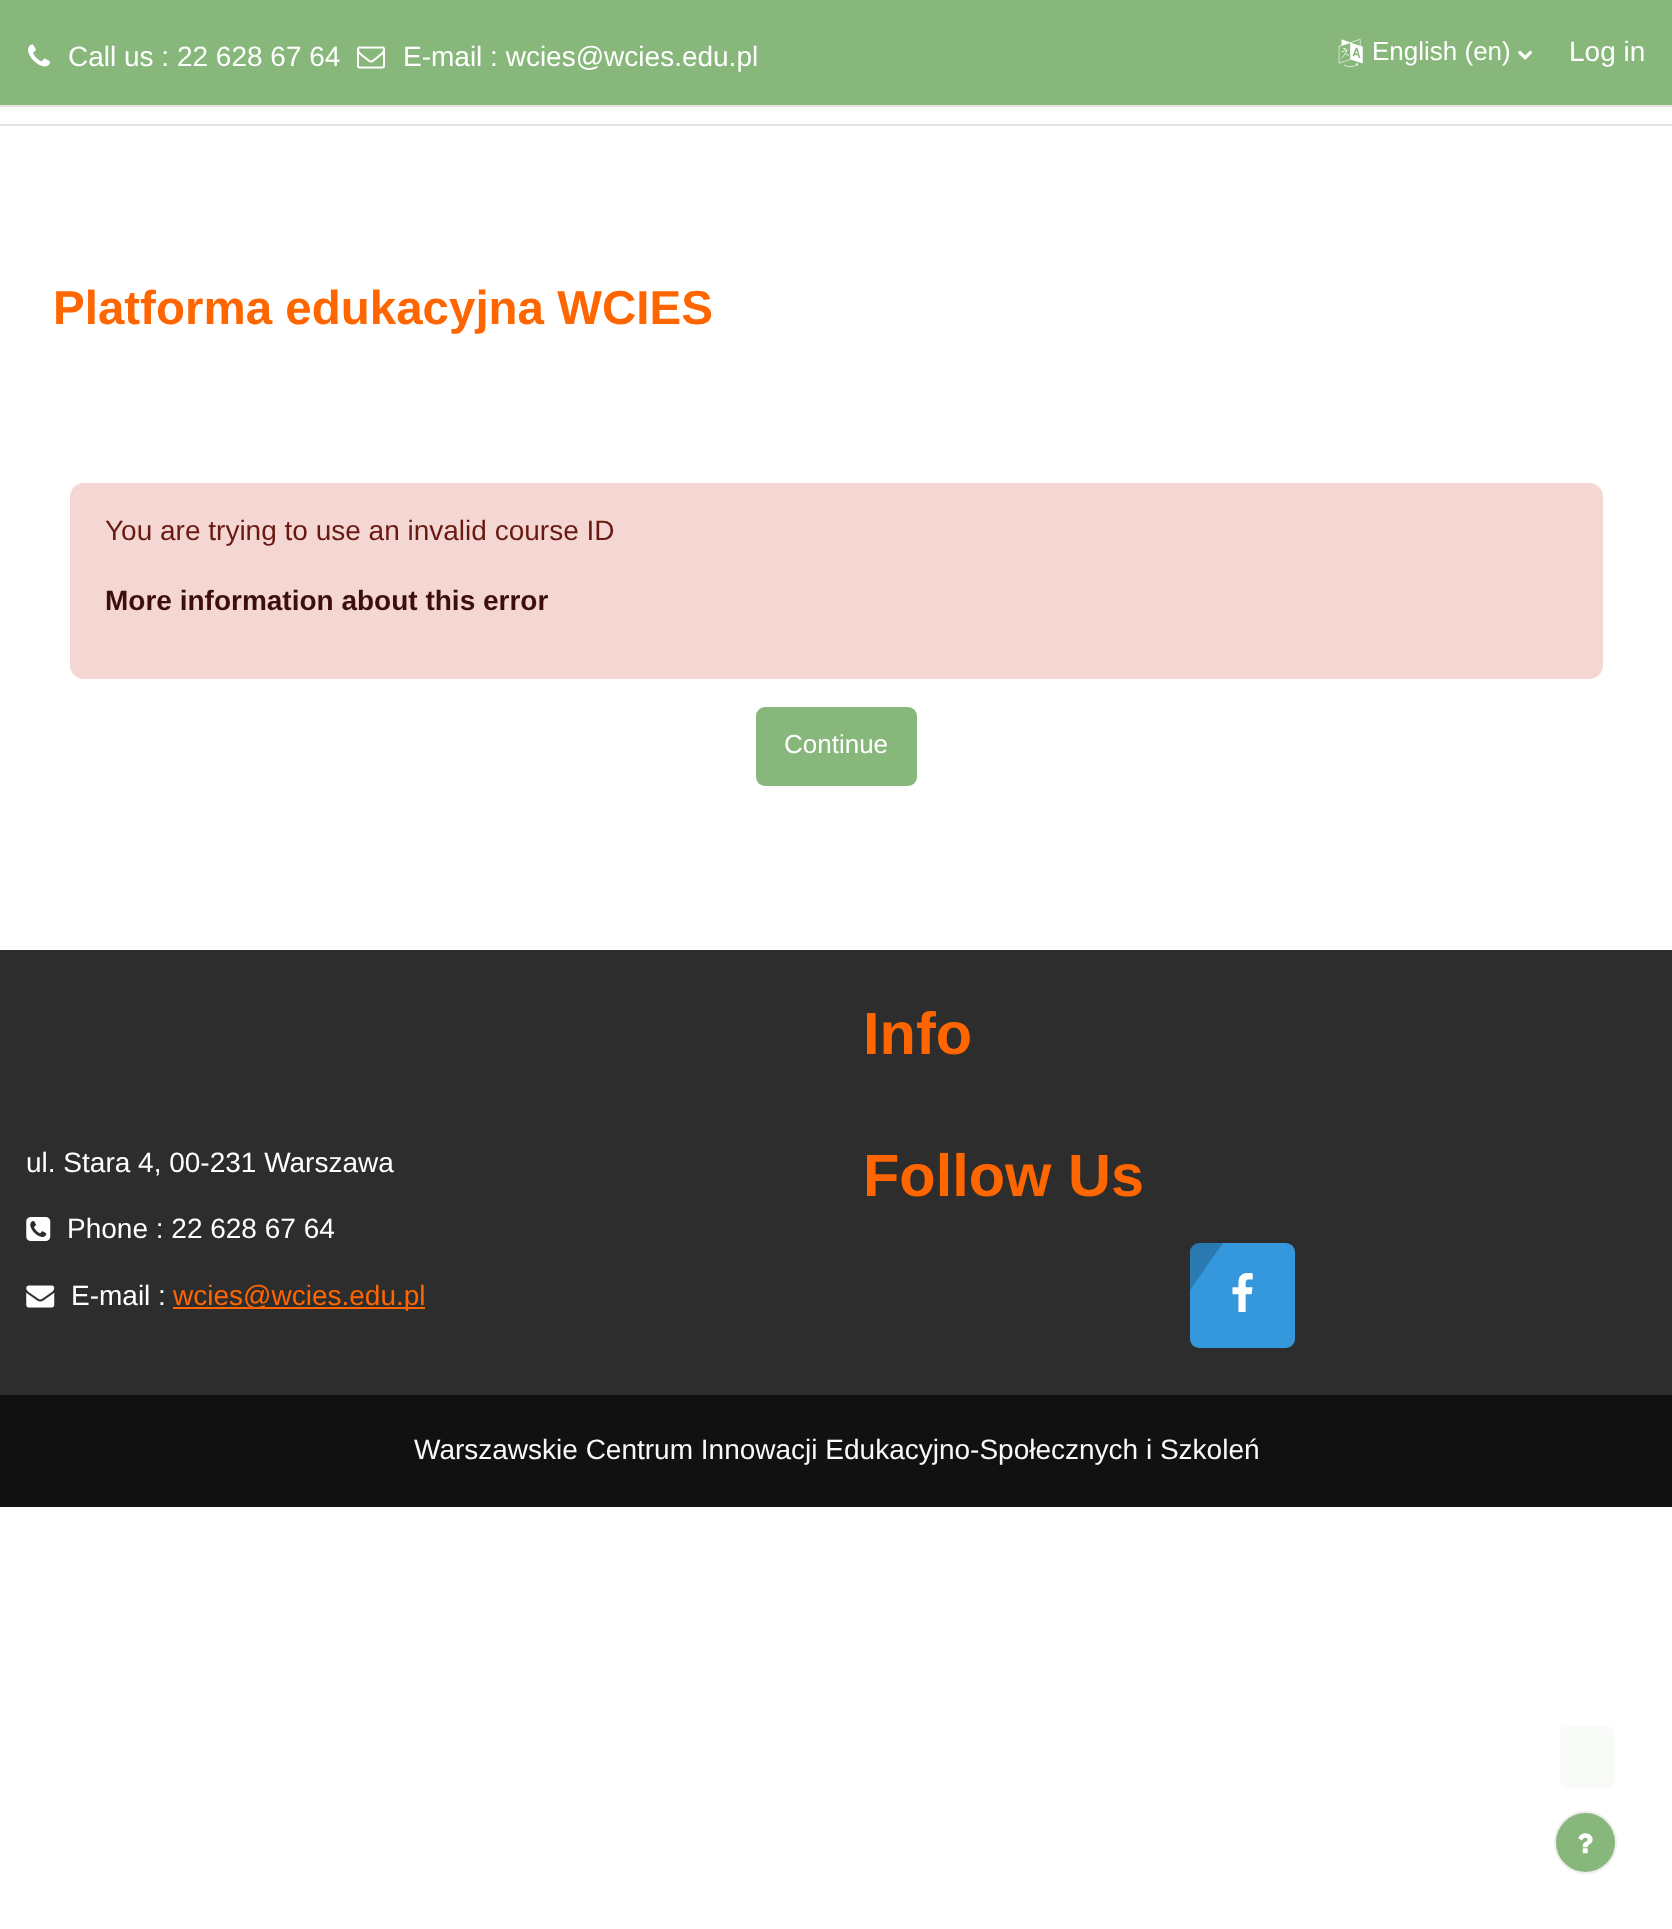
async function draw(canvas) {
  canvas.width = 1672;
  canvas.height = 1929;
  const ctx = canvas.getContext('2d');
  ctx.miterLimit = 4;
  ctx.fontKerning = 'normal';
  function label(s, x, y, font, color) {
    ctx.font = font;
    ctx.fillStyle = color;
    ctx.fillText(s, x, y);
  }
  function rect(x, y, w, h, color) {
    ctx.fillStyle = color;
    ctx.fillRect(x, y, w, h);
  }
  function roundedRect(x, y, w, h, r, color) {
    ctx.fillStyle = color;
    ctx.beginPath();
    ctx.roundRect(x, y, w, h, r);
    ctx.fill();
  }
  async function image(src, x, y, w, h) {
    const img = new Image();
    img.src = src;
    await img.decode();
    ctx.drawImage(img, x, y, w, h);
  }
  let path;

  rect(0, 0, 1672, 1929, '#fff');
  rect(0, 0, 1672, 105, '#88b77b');
  rect(0, 105, 1672, 2, '#e8e3e3');
  await image('assets/img1.png', 28, 44, 22, 23);
  label('Call us : 22 628 67 64', 68, 66, '28px Liberation Sans', '#fff');
  await image('assets/img2.png', 357, 46, 28, 23);
  label('E-mail : wcies@wcies.edu.pl', 403, 66, '28px Liberation Sans', '#fff');
  await image('assets/img3.png', 1338, 39, 25, 28);
  label('English (en)', 1372, 60, '26px Liberation Sans', '#fff');
  await image('assets/img4.png', 1518, 50, 15, 10);
  label('Log in', 1569, 61, '28px Liberation Sans', '#fff');
  rect(0, 124, 1672, 2, '#e8e3e3');
  label('Platforma edukacyjna WCIES', 53, 324, 'bold 47.5px Liberation Sans', '#f60');
  roundedRect(70, 483, 1533, 196, 14, '#f4d6d2');
  label('You are trying to use an invalid course ID', 105, 540, '28px Liberation Sans', '#691911');
  label('More information about this error', 105, 610, 'bold 28px Liberation Sans', '#3d0f0a');
  roundedRect(756, 707, 161, 79, 9, '#88b77b');
  label('Continue', 784, 753, '26px Liberation Sans', '#fff');
  rect(0, 950, 1672, 445, '#2d2d2d');
  label('Info', 863, 1054, 'bold 59.5px Liberation Sans', '#f60');
  label('ul. Stara 4, 00-231 Warszawa', 26, 1172, '28px Liberation Sans', '#fff');
  await image('assets/img5.png', 26, 1217, 25, 24);
  label('Phone : 22 628 67 64', 67, 1238, '28px Liberation Sans', '#fff');
  await image('assets/img6.png', 26, 1285, 29, 23);
  label('E-mail :', 71, 1305, '28px Liberation Sans', '#fff');
  rect(173, 1307, 252, 2, '#f60');
  label('wcies@wcies.edu.pl', 173, 1305, '28px Liberation Sans', '#f60');
  label('Follow Us', 863, 1196, 'bold 59.5px Liberation Sans', '#f60');
  roundedRect(1190, 1243, 105, 105, 9, '#3598dc');
  await image('assets/img7.png', 1232, 1273, 21, 39);
  ctx.fillStyle = '#00000033';
  path = new Path2D('M1199 1243H1223L1190 1290V1252C1190 1247 1194 1243 1199 1243Z');
  ctx.fill(path);
  rect(0, 1395, 1672, 112, '#111');
  label('Warszawskie Centrum Innowacji Edukacyjno-Społecznych i Szkoleń', 414, 1459, '28px Liberation Sans', '#f8f9fa');
  ctx.fillStyle = '#88b77b';
  ctx.beginPath();
  ctx.arc(1585.5, 1842.5, 30.5, 0, 2 * Math.PI);
  ctx.fill();
  ctx.strokeStyle = '#eee';
  ctx.lineWidth = 2;
  ctx.stroke();
  await image('assets/img8.png', 1578, 1833, 15, 21);
  ctx.fillStyle = '#f9fbf8';
  ctx.beginPath();
  ctx.roundRect(1559, 1725, 57, 64, 8);
  ctx.fill();
  ctx.strokeStyle = '#fff';
  ctx.stroke();
}

draw(document.querySelector('canvas'));
